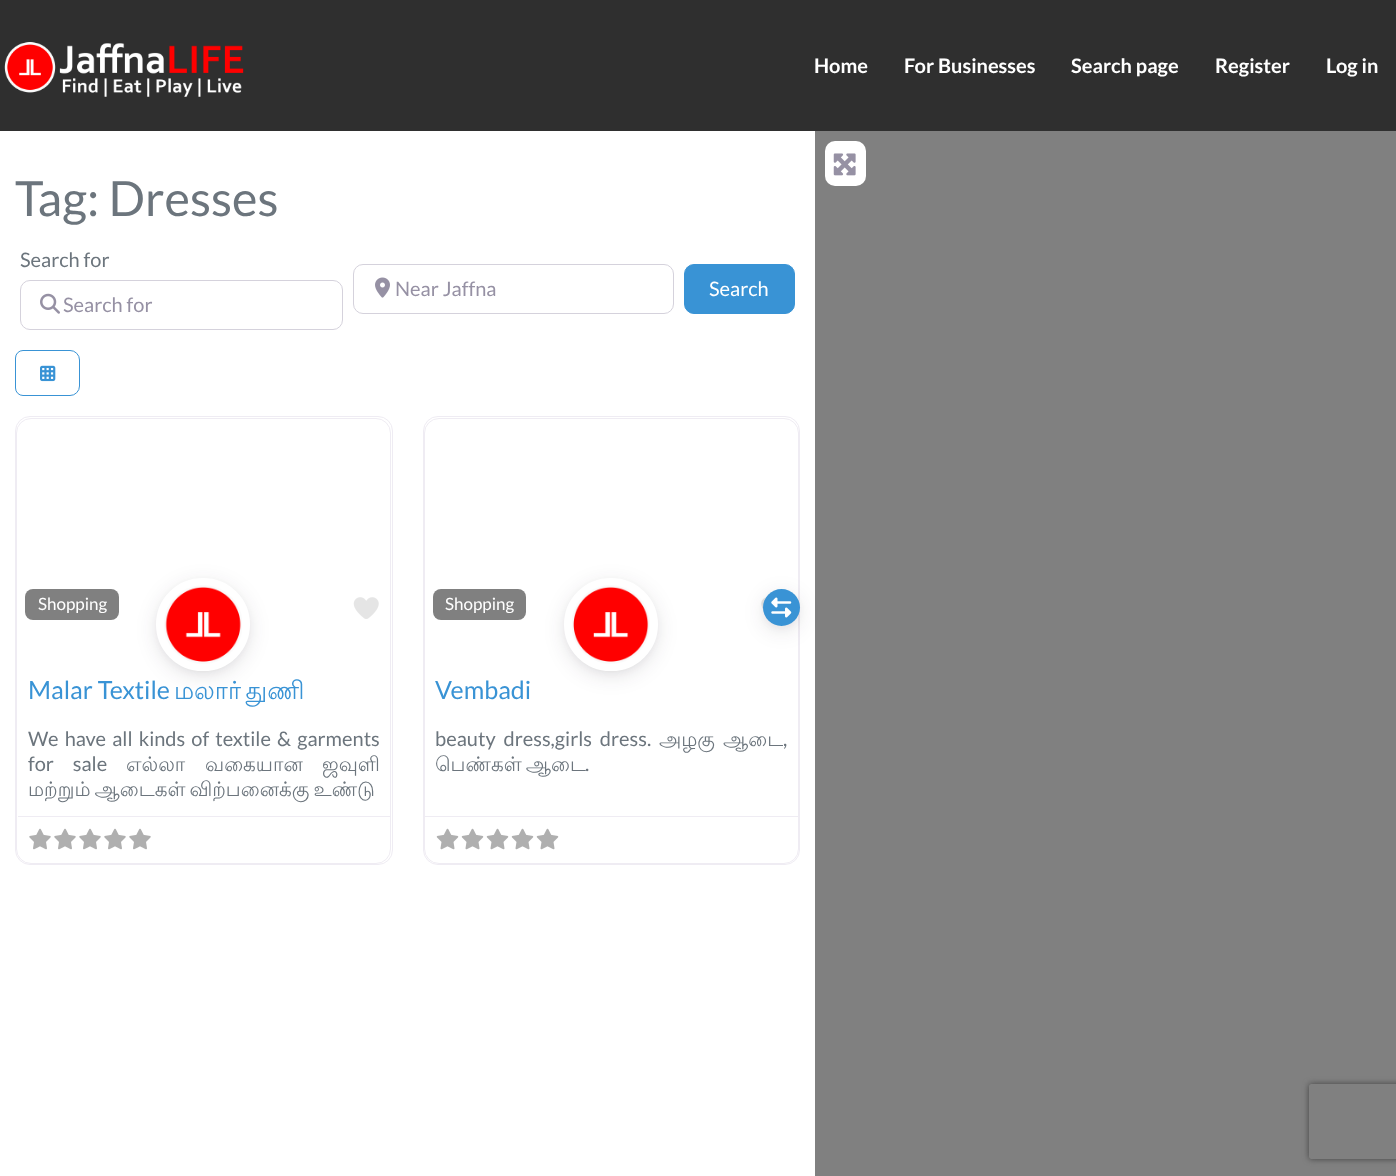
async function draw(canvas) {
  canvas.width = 1396;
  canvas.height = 1176;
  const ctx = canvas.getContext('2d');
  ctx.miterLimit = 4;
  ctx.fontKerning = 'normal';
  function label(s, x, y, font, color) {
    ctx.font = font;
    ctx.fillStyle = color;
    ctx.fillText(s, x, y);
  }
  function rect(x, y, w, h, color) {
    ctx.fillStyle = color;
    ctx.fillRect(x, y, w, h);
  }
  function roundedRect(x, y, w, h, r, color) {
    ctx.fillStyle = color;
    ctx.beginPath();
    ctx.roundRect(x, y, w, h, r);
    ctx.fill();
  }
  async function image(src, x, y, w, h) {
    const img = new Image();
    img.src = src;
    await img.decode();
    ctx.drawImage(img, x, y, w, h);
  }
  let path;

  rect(0, 0, 1396, 1176, '#fff');
  rect(815, 131, 581, 1045, '#808080');
  rect(0, 0, 1396, 131, '#2f2f2f');
  await image('assets/img1.png', 4, 42, 240, 55);
  label('Home', 814, 73, 'bold 20px Lato', '#fff');
  label('For Businesses', 904, 73, 'bold 20px Lato', '#fff');
  label('Search page', 1071, 73, 'bold 20px Lato', '#fff');
  label('Register', 1215, 73, 'bold 20px Lato', '#fff');
  label('Log in', 1326, 73, 'bold 20px Lato', '#fff');
  roundedRect(825, 141, 41, 45, 10, '#fff');
  await image('assets/img2.png', 833, 153, 23, 23);
  label('Tag: Dresses', 15, 216, '48.5px Lato', '#6c757d');
  label('Search for', 20, 267, '20px Lato', '#6c757d');
  ctx.beginPath();
  ctx.roundRect(20.5, 280.5, 322, 49, 9.5);
  ctx.strokeStyle = '#d5d2dc';
  ctx.stroke();
  await image('assets/img3.png', 40, 293, 20, 21);
  label('Search for', 63, 312, '20px Lato', '#9691a4');
  ctx.beginPath();
  ctx.roundRect(353.5, 264.5, 320, 49, 9.5);
  ctx.stroke();
  await image('assets/img4.png', 375, 277, 15, 21);
  label('Near Jaffna', 395, 296, '20px Lato', '#9691a4');
  ctx.fillStyle = '#3993d5';
  ctx.beginPath();
  ctx.roundRect(684.5, 264.5, 110, 49, 9.5);
  ctx.fill();
  ctx.strokeStyle = '#3993d5';
  ctx.stroke();
  label('Search', 709, 296, '20px Lato', '#fff');
  ctx.beginPath();
  ctx.roundRect(15.5, 350.5, 64, 45, [7.5, 9.5, 9.5, 7.5]);
  ctx.stroke();
  await image('assets/img5.png', 40, 365, 16, 17);
  ctx.beginPath();
  ctx.roundRect(423.5, 416.5, 376, 448, 14.5);
  ctx.strokeStyle = '#efecf3';
  ctx.stroke();
  ctx.beginPath();
  ctx.roundRect(424.5, 418.5, 374, 445, 14.5);
  ctx.fill();
  ctx.stroke();
  await image('assets/img10.png', 761, 597, 6, 14);
  ctx.fillStyle = '#1f1b2d1f';
  ctx.filter = 'blur(10px)';
  ctx.beginPath();
  ctx.roundRect(763, 594, 37, 37, 18.5);
  ctx.fill();
  ctx.filter = 'none';
  ctx.filter = 'blur(5px)';
  ctx.beginPath();
  ctx.roundRect(768, 596, 27, 28, 13.5);
  ctx.fill();
  ctx.filter = 'none';
  ctx.fillStyle = '#3993d5';
  ctx.beginPath();
  ctx.arc(781.5, 607.5, 18.5, 0, 2 * Math.PI);
  ctx.fill();
  await image('assets/img6.png', 771, 597, 21, 21);
  ctx.beginPath();
  ctx.roundRect(15.5, 416.5, 377, 448, 14.5);
  ctx.stroke();
  ctx.fillStyle = '#fff';
  ctx.beginPath();
  ctx.roundRect(16.5, 418.5, 374, 445, 14.5);
  ctx.fill();
  ctx.stroke();
  roundedRect(25, 589, 94, 31, 8, '#808080');
  label('Shopping', 38, 610, '17px Lato', '#fff');
  await image('assets/img7.png', 353, 597, 26, 22);
  ctx.fillStyle = '#1f1b2d1f';
  ctx.filter = 'blur(10px)';
  ctx.beginPath();
  ctx.roundRect(156, 583, 94, 93, 46.5);
  ctx.fill();
  ctx.filter = 'none';
  ctx.filter = 'blur(5px)';
  ctx.beginPath();
  ctx.roundRect(161, 585, 84, 84, 42);
  ctx.fill();
  ctx.filter = 'none';
  ctx.fillStyle = '#fff';
  ctx.beginPath();
  ctx.roundRect(158.5, 580.5, 89, 88, 44);
  ctx.fill();
  ctx.strokeStyle = '#fff';
  ctx.lineWidth = 5;
  ctx.stroke();
  await image('assets/img8.png', 164, 585, 78, 79);
  label('Malar Textile', 28, 699, '25px Lato', '#3993d5');
  ctx.wordSpacing = '-3px';
  label('மலார் துணி', 174, 699, '25px Lohit Tamil', '#3993d5');
  ctx.wordSpacing = '2.25px';
  label('We have all kinds of textile & garments', 28, 746, '20px Lato', '#6c757d');
  ctx.wordSpacing = '15px';
  label('for sale', 28, 771, '20px Lato', '#6c757d');
  ctx.wordSpacing = '0px';
  label('எல்லா', 126, 771, '20px Lohit Tamil', '#6c757d');
  label('வகையான', 205, 771, '20px Lohit Tamil', '#6c757d');
  label('ஜவுளி', 322, 771, '20px Lohit Tamil', '#6c757d');
  ctx.wordSpacing = '-2px';
  label('மற்றும் ஆடைகள் விற்பனைக்கு உண்டு', 28, 796, '20px Lohit Tamil', '#6c757d');
  rect(18, 816, 372, 1, '#efecf3');
  await image('assets/img9.png', 29, 828, 22, 22);
  await image('assets/img9.png', 54, 828, 22, 22);
  await image('assets/img9.png', 79, 828, 22, 22);
  await image('assets/img9.png', 104, 828, 22, 22);
  await image('assets/img9.png', 129, 828, 22, 22);
  roundedRect(433, 589, 93, 31, 8, '#808080');
  ctx.wordSpacing = '0px';
  label('Shopping', 445, 610, '17px Lato', '#fff');
  label('Vembadi', 435, 699, '25px Lato', '#3993d5');
  ctx.fillStyle = '#1f1b2d1f';
  ctx.filter = 'blur(10px)';
  ctx.beginPath();
  ctx.roundRect(564, 583, 94, 93, 46.5);
  ctx.fill();
  ctx.filter = 'none';
  ctx.filter = 'blur(5px)';
  ctx.beginPath();
  ctx.roundRect(569, 585, 84, 84, 42);
  ctx.fill();
  ctx.filter = 'none';
  ctx.fillStyle = '#fff';
  ctx.beginPath();
  ctx.roundRect(566.5, 580.5, 89, 88, 44);
  ctx.fill();
  ctx.stroke();
  await image('assets/img11.png', 572, 585, 78, 79);
  ctx.wordSpacing = '4px';
  label('beauty dress,girls dress.', 435, 746, '20px Lato', '#6c757d');
  ctx.wordSpacing = '0px';
  label('அழகு', 659, 746, '20px Lohit Tamil', '#6c757d');
  label('ஆடை', 723, 746, '20px Lohit Tamil', '#6c757d');
  label(',', 783, 746, '20px Lato', '#6c757d');
  ctx.wordSpacing = '-2px';
  label('பெண்கள் ஆடை', 435, 771, '20px Lohit Tamil', '#6c757d');
  ctx.wordSpacing = '0px';
  label('.', 585, 771, '20px Lato', '#6c757d');
  rect(425, 816, 373, 1, '#efecf3');
  await image('assets/img12.png', 436, 828, 23, 22);
  await image('assets/img12.png', 461, 828, 23, 22);
  await image('assets/img12.png', 486, 828, 23, 22);
  await image('assets/img12.png', 511, 828, 23, 22);
  await image('assets/img12.png', 536, 828, 23, 22);
  ctx.save();
  path = new Path2D('M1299 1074H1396V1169H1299ZM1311.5 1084H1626.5C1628 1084 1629 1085 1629 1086.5V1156.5C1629 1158 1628 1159 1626.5 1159H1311.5C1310 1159 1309 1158 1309 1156.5V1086.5C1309 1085 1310 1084 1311.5 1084Z');
  ctx.clip(path, 'evenodd');
  ctx.fillStyle = '#404040';
  ctx.filter = 'blur(3px)';
  ctx.beginPath();
  ctx.roundRect(1309, 1084, 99, 75, 2.5);
  ctx.fill();
  ctx.filter = 'none';
  ctx.restore();
}

draw(document.querySelector('canvas'));
